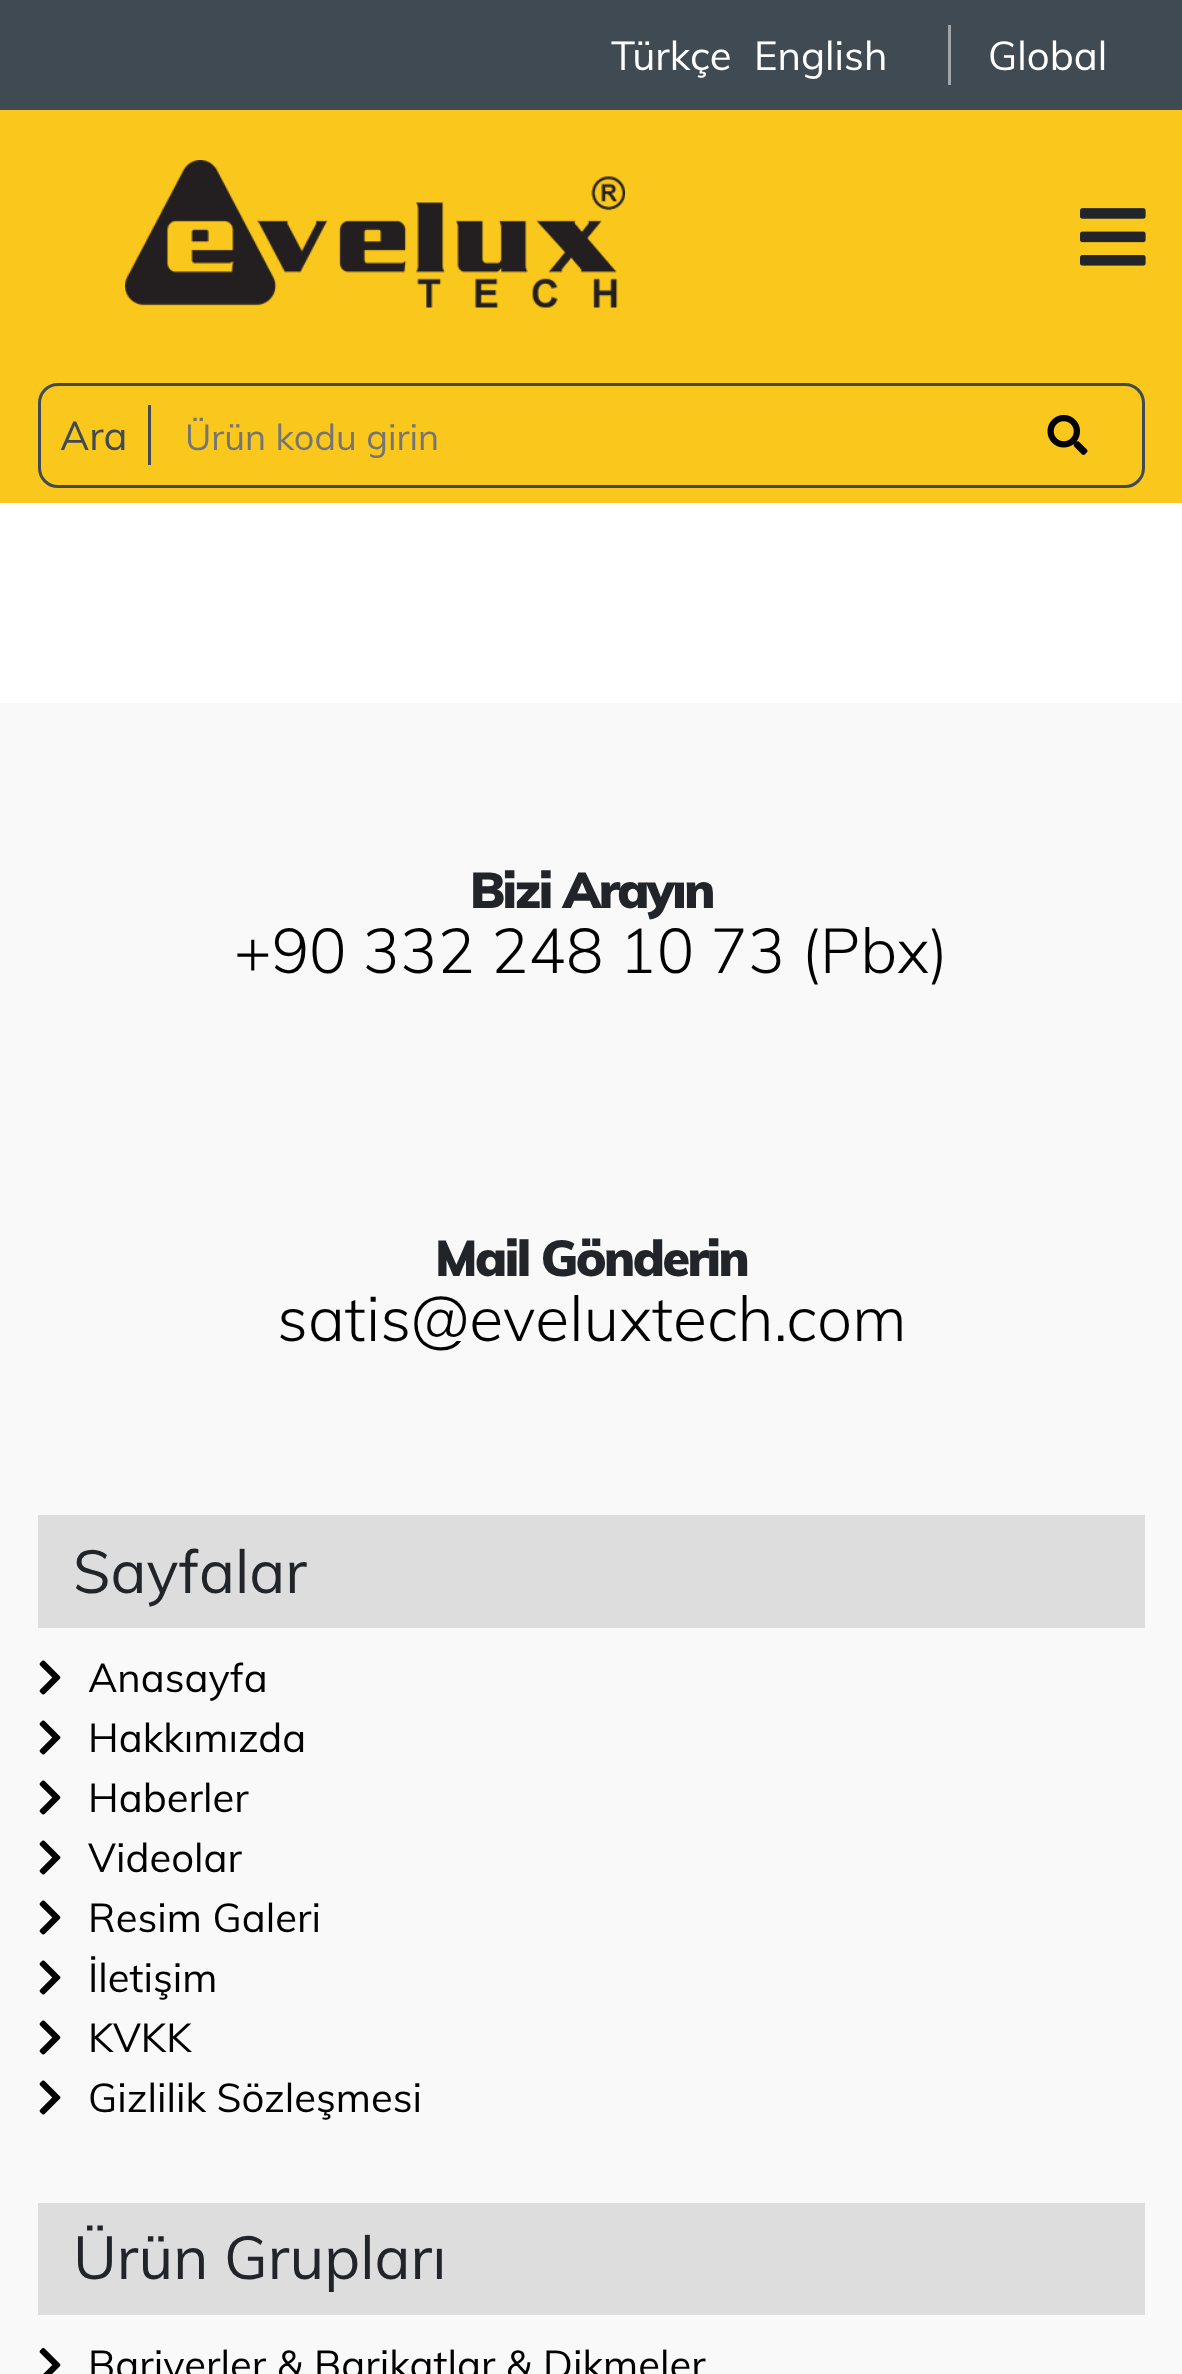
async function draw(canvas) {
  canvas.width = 1182;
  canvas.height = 2374;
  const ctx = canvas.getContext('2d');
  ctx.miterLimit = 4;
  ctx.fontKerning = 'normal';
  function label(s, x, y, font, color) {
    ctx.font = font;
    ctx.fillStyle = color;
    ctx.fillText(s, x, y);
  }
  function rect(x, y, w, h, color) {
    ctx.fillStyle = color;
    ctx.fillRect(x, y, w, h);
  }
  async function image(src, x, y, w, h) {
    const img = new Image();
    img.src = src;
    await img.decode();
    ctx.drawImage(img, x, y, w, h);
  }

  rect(0, 0, 1182, 2374, '#fff');
  rect(0, 110, 1182, 393, '#fac71d');
  rect(0, 0, 1182, 110, '#404a52');
  label('Türkçe', 611, 70, '40px Muli', '#fff');
  label('English', 754, 70, '40px Muli', '#fff');
  rect(948, 25, 3, 60, '#a0a5a9');
  label('Global', 988, 70, '40px Muli', '#fff');
  await image('assets/img1.png', 125, 160, 500, 148);
  await image('assets/img2.png', 1080, 208, 66, 58);
  ctx.beginPath();
  ctx.roundRect(39.5, 384.5, 1104, 102, 18.5);
  ctx.strokeStyle = '#404a52';
  ctx.lineWidth = 3;
  ctx.stroke();
  rect(148, 405, 3, 60, '#404a52');
  label('Ara', 60, 450, '40px Muli', '#404a52');
  label('Ürün kodu girin', 185, 450, '36px Muli', '#757575');
  await image('assets/img3.png', 1047, 415, 41, 40);
  rect(0, 703, 1182, 1671, '#f9f9f9');
  ctx.letterSpacing = '-2.5px';
  label('Bizi Arayın', 470, 908, '900 50px Muli', '#212529');
  ctx.letterSpacing = '0px';
  label('+90 332 248 10 73 (Pbx)', 234, 973, '300 62.5px Muli', '#000');
  ctx.letterSpacing = '-2.5px';
  label('Mail Gönderin', 435, 1276, '900 50px Muli', '#212529');
  ctx.letterSpacing = '0px';
  label('satis@eveluxtech.com', 277, 1341, '300 62.5px Muli', '#000');
  rect(38, 1515, 1107, 113, '#ddd');
  label('Sayfalar', 73, 1593, '60px Muli', '#212529');
  await image('assets/img4.png', 39, 1660, 22, 35);
  label('Anasayfa', 88, 1692, '40px Muli', '#000');
  await image('assets/img4.png', 39, 1720, 22, 35);
  label('Hakkımızda', 88, 1752, '40px Muli', '#000');
  await image('assets/img4.png', 39, 1780, 22, 35);
  label('Haberler', 88, 1812, '40px Muli', '#000');
  await image('assets/img4.png', 39, 1840, 22, 35);
  label('Videolar', 88, 1872, '40px Muli', '#000');
  await image('assets/img4.png', 39, 1900, 22, 35);
  label('Resim Galeri', 88, 1932, '40px Muli', '#000');
  await image('assets/img4.png', 39, 1960, 22, 35);
  label('İletişim', 88, 1992, '40px Muli', '#000');
  await image('assets/img4.png', 39, 2020, 22, 35);
  label('KVKK', 88, 2052, '40px Muli', '#000');
  await image('assets/img4.png', 39, 2080, 22, 35);
  label('Gizlilik Sözleşmesi', 88, 2112, '40px Muli', '#000');
  rect(38, 2203, 1107, 112, '#ddd');
  label('Ürün Grupları', 73, 2279, '60px Muli', '#212529');
  await image('assets/img5.png', 39, 2348, 22, 26);
  label('Bariyerler & Barikatlar & Dikmeler', 88, 2379, '40px Muli', '#000');
}

draw(document.querySelector('canvas'));
